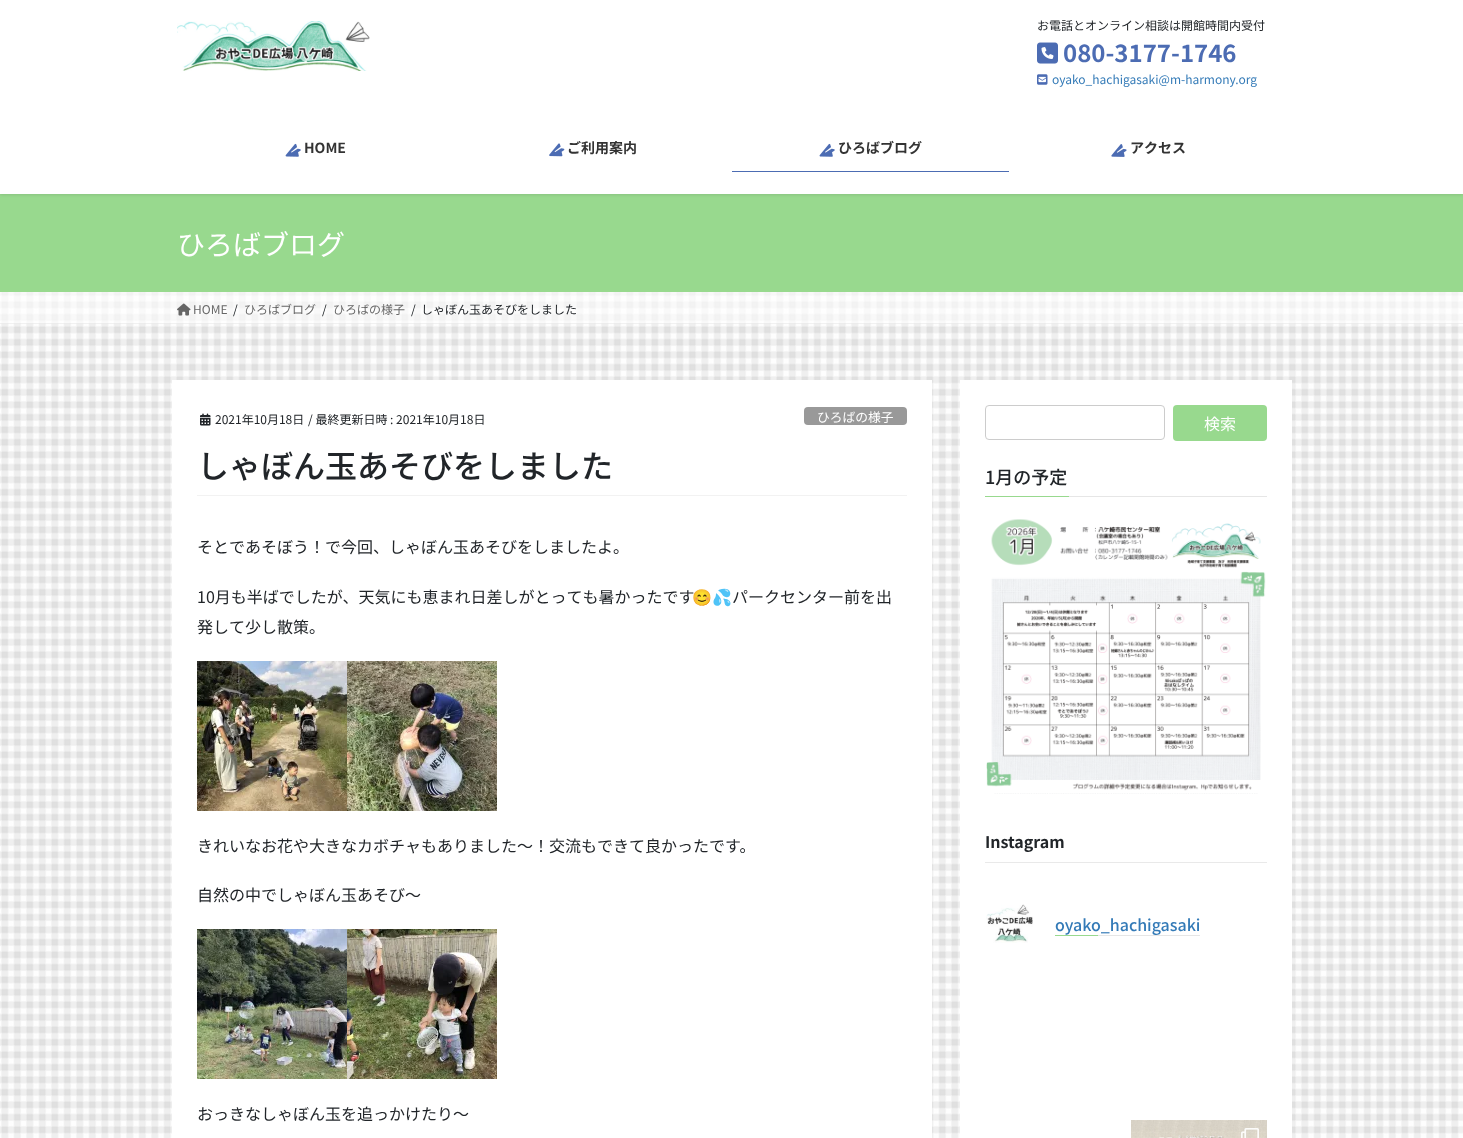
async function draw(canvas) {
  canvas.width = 1463;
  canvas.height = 1138;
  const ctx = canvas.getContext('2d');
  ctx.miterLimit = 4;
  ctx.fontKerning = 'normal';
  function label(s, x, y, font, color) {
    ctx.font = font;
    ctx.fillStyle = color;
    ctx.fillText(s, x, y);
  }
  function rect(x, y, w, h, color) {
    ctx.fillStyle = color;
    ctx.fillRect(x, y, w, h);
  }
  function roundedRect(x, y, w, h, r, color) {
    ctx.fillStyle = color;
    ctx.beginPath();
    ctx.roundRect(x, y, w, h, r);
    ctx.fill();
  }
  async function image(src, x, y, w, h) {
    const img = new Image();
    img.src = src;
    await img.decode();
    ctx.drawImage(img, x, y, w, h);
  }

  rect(0, 0, 1463, 1138, '#fff');
  await image('assets/img1.png', 0, 292, 1463, 846);
  rect(0, 194, 1463, 98, '#98d98e');
  ctx.fillStyle = '#0000001a';
  ctx.filter = 'blur(1.5px)';
  ctx.beginPath();
  ctx.rect(0, 1, 1463, 194);
  ctx.fill();
  ctx.filter = 'none';
  rect(0, 0, 1463, 194, '#fff');
  await image('assets/img2.png', 177, 21, 193, 50);
  label('お電話とオンライン相談は開館時間内受付', 1037, 30, '12px Noto Sans JP', '#212529');
  await image('assets/img3.png', 1037, 42, 21, 22);
  label('080-3177-1746', 1063, 62, 'bold 24px Noto Sans JP', '#4c6cb3');
  await image('assets/img4.png', 1037, 74, 11, 11);
  label('oyako_hachigasaki@m-harmony.org', 1052, 84, '12px Noto Sans JP', '#337ab7');
  await image('assets/img5.png', 285, 143, 16, 14);
  label('HOME', 304, 153, 'bold 14px Noto Sans JP', '#333');
  await image('assets/img6.png', 549, 143, 16, 14);
  label('ご利用案内', 567, 153, 'bold 14px Noto Sans JP', '#333');
  await image('assets/img7.png', 819, 143, 16, 14);
  label('ひろばブログ', 838, 153, 'bold 14px Noto Sans JP', '#333');
  rect(732, 171, 277, 1, '#4c6cb3');
  await image('assets/img8.png', 1111, 144, 16, 13);
  label('アクセス', 1130, 153, 'bold 14px Noto Sans JP', '#333');
  label('ひろばブログ', 177, 255, '28px Noto Sans JP', '#fff');
  rect(0, 292, 1463, 32, '#ffffff99');
  rect(0, 323, 1463, 1, '#0000000d');
  await image('assets/img9.png', 177, 303, 14, 13);
  label('HOME', 193, 314, '12px Noto Sans JP', '#666');
  label('/', 233, 314, '12px Noto Sans JP', '#212529');
  label('ひろばブログ', 244, 314, '12px Noto Sans JP', '#666');
  label('/', 322, 314, '12px Noto Sans JP', '#212529');
  label('ひろばの様子', 333, 314, '12px Noto Sans JP', '#666');
  label('/', 411, 314, '12px Noto Sans JP', '#212529');
  label('しゃぼん玉あそびをしました', 421, 314, '12px Noto Sans JP', '#212529');
  rect(172, 380, 760, 758, '#fff');
  rect(197, 495, 710, 1, '#f2f2f2');
  await image('assets/img10.png', 200, 413, 11, 13);
  label('2021年10月18日', 215, 424, '12px Noto Sans JP', '#212529');
  label('/ 最終更新日時 : 2021年10月18日', 308, 424, '12px Noto Sans JP', '#212529');
  roundedRect(804, 407, 103, 18, 4, '#999');
  label('ひろばの様子', 817, 422, '12.75px Noto Sans JP', '#fff');
  label('しゃぼん玉あそびをしました', 197, 478, '500 32px Noto Sans JP', '#212529');
  label('そとであそぼう！で今回、しゃぼん玉あそびをしましたよ。', 197, 553, '16px Noto Sans JP', '#212529');
  label('10月も半ばでしたが、天気にも恵まれ日差しがとっても暑かったです', 197, 603, '16px Noto Sans JP', '#212529');
  label('😊💦', 692, 603, '16px Noto Color Emoji', '#212529');
  label('パークセンター前を出', 732, 603, '16px Noto Sans JP', '#212529');
  label('発して少し散策。', 197, 633, '16px Noto Sans JP', '#212529');
  await image('assets/img11.png', 197, 661, 150, 150);
  await image('assets/img12.png', 347, 661, 150, 150);
  label('きれいなお花や大きなカボチャもありました～！交流もできて良かったです。', 197, 852, '16px Noto Sans JP', '#212529');
  label('自然の中でしゃぼん玉あそび～', 197, 901, '16px Noto Sans JP', '#212529');
  await image('assets/img13.png', 197, 929, 150, 150);
  await image('assets/img14.png', 347, 929, 150, 150);
  label('おっきなしゃぼん玉を追っかけたり〜', 197, 1120, '16px Noto Sans JP', '#212529');
  rect(960, 380, 332, 758, '#fff');
  ctx.beginPath();
  ctx.roundRect(985.5, 405.5, 179, 34, 3.5);
  ctx.strokeStyle = '#ccc';
  ctx.stroke();
  roundedRect(1173, 405, 94, 36, 4, '#98d98e');
  label('検索', 1204, 430, '16px Noto Sans JP', '#fff');
  rect(1069, 496, 198, 1, '#e6e6e6');
  label('1月の予定', 985, 484, '500 18px Noto Sans JP', '#212529');
  rect(985, 496, 84, 1, '#98d98e');
  await image('assets/img15.png', 986, 519, 280, 275);
  rect(985, 862, 282, 1, '#e9e9e9');
  label('Instagram', 985, 848, 'bold 16px Noto Sans JP', '#212529');
  await image('assets/img16.png', 986, 904, 47, 39);
  rect(1098, 935, 102, 1, '#e6e6e6');
  label('oyako_hachigasaki', 1055, 931, '500 16px Noto Sans JP', '#337ab7');
  rect(1055, 935, 43, 1, '#98d98e');
  await image('assets/img17.png', 1131, 1120, 136, 18);
  await image('assets/img18.png', 1241, 1128, 18, 10);
}

draw(document.querySelector('canvas'));
